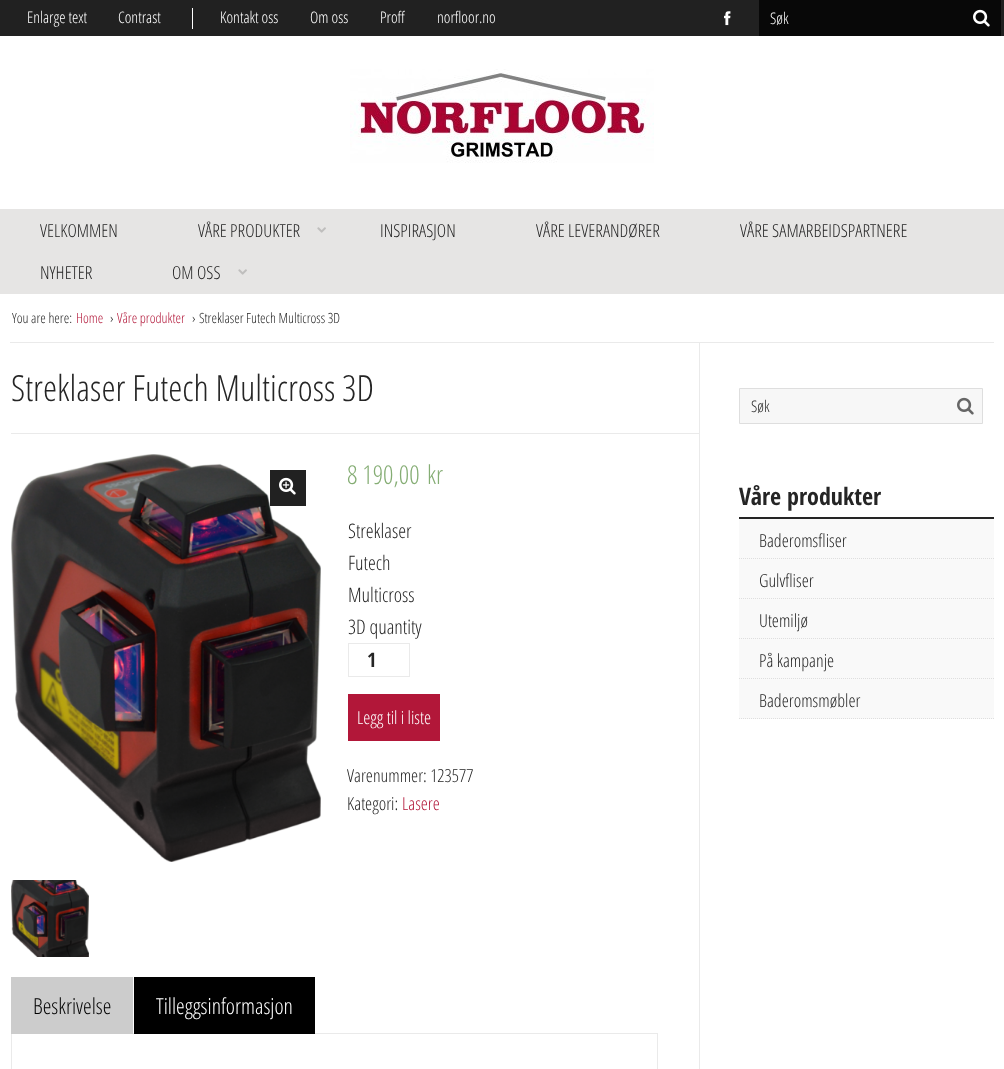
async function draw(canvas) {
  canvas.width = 1004;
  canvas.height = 1069;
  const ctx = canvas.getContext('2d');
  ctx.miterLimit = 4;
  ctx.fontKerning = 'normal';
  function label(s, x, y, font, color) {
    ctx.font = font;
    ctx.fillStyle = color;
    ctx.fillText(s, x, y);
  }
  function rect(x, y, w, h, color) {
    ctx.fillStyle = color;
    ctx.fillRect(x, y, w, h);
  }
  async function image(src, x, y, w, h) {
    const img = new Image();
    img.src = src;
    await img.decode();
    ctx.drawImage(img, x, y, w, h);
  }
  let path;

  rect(0, 0, 1004, 1069, '#fff');
  rect(0, 0, 1004, 36, '#212121');
  label('Enlarge text', 27, 23, '300 16px Open Sans Condensed', '#fff');
  label('Contrast', 118, 23, '300 16px Open Sans Condensed', '#fff');
  rect(192, 8, 1, 21, '#fff');
  label('Kontakt oss', 220, 23, '300 16px Open Sans Condensed', '#fff');
  label('Om oss', 310, 23, '300 16px Open Sans Condensed', '#fff');
  label('Proff', 380, 23, '300 16px Open Sans Condensed', '#fff');
  label('norfloor.no', 437, 23, '300 16px Open Sans Condensed', '#fff');
  await image('assets/img1.png', 724, 11, 7, 15);
  rect(759, 0, 242, 36, '#080808');
  label('Søk', 770, 24, '300 16px Open Sans Condensed', '#fff');
  await image('assets/img2.png', 973, 9, 17, 18);
  await image('assets/img3.png', 350, 69, 304, 94);
  rect(0, 209, 1004, 85, '#e6e5e4');
  label('VELKOMMEN', 40, 237, '300 18px Open Sans Condensed', '#252525');
  label('VÅRE PRODUKTER', 198, 237, '300 18px Open Sans Condensed', '#252525');
  await image('assets/img4.png', 317, 227, 9, 6);
  label('INSPIRASJON', 380, 237, '300 18px Open Sans Condensed', '#252525');
  label('VÅRE LEVERANDØRER', 536, 237, '300 18px Open Sans Condensed', '#252525');
  label('VÅRE SAMARBEIDSPARTNERE', 740, 237, '300 18px Open Sans Condensed', '#252525');
  label('NYHETER', 40, 279, '300 18px Open Sans Condensed', '#252525');
  label('OM OSS', 172, 279, '300 18px Open Sans Condensed', '#252525');
  await image('assets/img4.png', 238, 269, 9, 6);
  rect(10, 342, 984, 1, '#eaeaea');
  label('You are here:', 12, 323, '300 14px Open Sans Condensed', '#252525');
  label('Home', 76, 323, '300 14px Open Sans Condensed', '#b21739');
  label('›', 110, 323, '300 14px Open Sans Condensed', '#252525');
  label('Våre produkter', 117, 323, '300 14px Open Sans Condensed', '#b21739');
  label('›', 192, 323, '300 14px Open Sans Condensed', '#252525');
  label('Streklaser Futech Multicross 3D', 199, 323, '300 14px Open Sans Condensed', '#252525');
  rect(699, 343, 1, 726, '#eaeaea');
  rect(11, 433, 688, 1, '#eaeaea');
  label('Streklaser Futech Multicross 3D', 11, 401, '300 36px Open Sans Condensed', '#252525');
  await image('assets/img5.png', 11, 454, 310, 408);
  rect(270, 470, 36, 36, '#212121');
  await image('assets/img6.png', 279, 477, 17, 18);
  await image('assets/img7.png', 11, 880, 78, 77);
  label('8 190,00', 347, 484, '300 26px Open Sans Condensed', '#85ad74');
  label('kr', 427, 484, '300 26px Open Sans Condensed', '#85ad74');
  label('Streklaser', 348, 538, '300 20px Open Sans Condensed', '#252525');
  label('Futech', 348, 570, '300 20px Open Sans Condensed', '#252525');
  label('Multicross', 348, 602, '300 20px Open Sans Condensed', '#252525');
  label('3D quantity', 348, 634, '300 20px Open Sans Condensed', '#252525');
  ctx.strokeStyle = '#eaeaea';
  ctx.strokeRect(348.5, 643.5, 61, 33);
  label('1', 367, 667, 'bold 20px Open Sans Condensed', '#252525');
  rect(348, 694, 92, 47, '#b21739');
  label('Legg til i liste', 357, 724, '300 18px Open Sans Condensed', '#fff');
  label('Varenummer: 123577', 347, 782, '300 18px Open Sans Condensed', '#252525');
  label('Kategori:', 347, 810, '300 18px Open Sans Condensed', '#252525');
  label('Lasere', 402, 810, '300 18px Open Sans Condensed', '#b21739');
  ctx.strokeRect(11.5, 1033.5, 646, 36);
  rect(11, 977, 122, 57, '#ccc');
  label('Beskrivelse', 33, 1014, '300 22px Open Sans Condensed', '#000');
  rect(134, 977, 181, 57, '#000');
  label('Tilleggsinformasjon', 156, 1014, '300 22px Open Sans Condensed', '#fff');
  ctx.fillStyle = '#f7f7f7';
  ctx.beginPath();
  ctx.rect(739.5, 388.5, 243, 35);
  ctx.fill();
  ctx.strokeStyle = '#dedede';
  ctx.stroke();
  label('Søk', 751, 412, '300 16px Open Sans Condensed', '#252525');
  await image('assets/img8.png', 957, 397, 17, 18);
  rect(739, 517, 255, 2, '#252525');
  label('Våre produkter', 739, 505, 'bold 24px Open Sans Condensed', '#252525');
  rect(739, 519, 255, 200, '#f9f9f9');
  path = new Path2D('M739 558.5H994');
  ctx.setLineDash([1, 1]);
  ctx.stroke(path);
  label('Baderomsfliser', 759, 547, '300 18px Open Sans Condensed', '#252525');
  path = new Path2D('M739 598.5H994');
  ctx.stroke(path);
  label('Gulvfliser', 759, 587, '300 18px Open Sans Condensed', '#252525');
  path = new Path2D('M739 638.5H994');
  ctx.stroke(path);
  label('Utemiljø', 759, 627, '300 18px Open Sans Condensed', '#252525');
  path = new Path2D('M739 678.5H994');
  ctx.stroke(path);
  label('På kampanje', 759, 667, '300 18px Open Sans Condensed', '#252525');
  path = new Path2D('M739 718.5H994');
  ctx.stroke(path);
  label('Baderomsmøbler', 759, 707, '300 18px Open Sans Condensed', '#252525');
}

draw(document.querySelector('canvas'));
